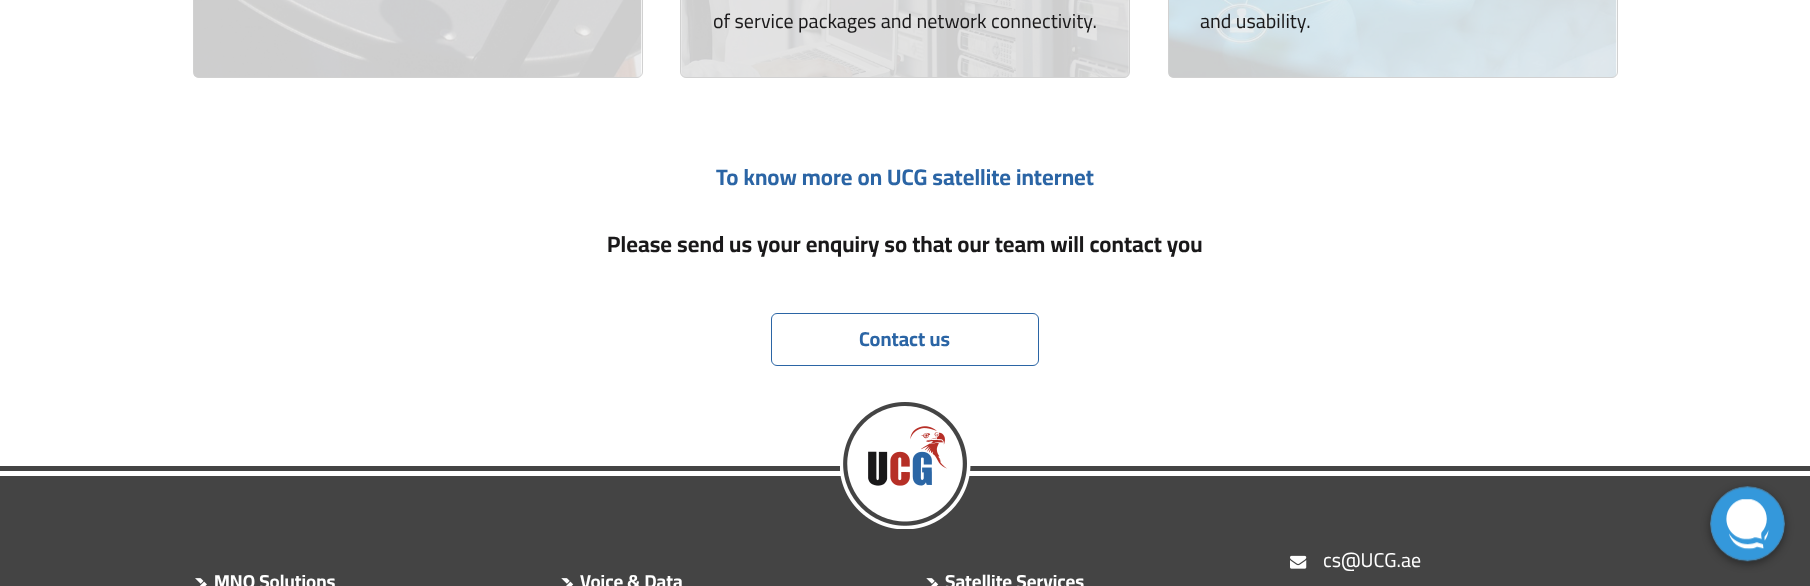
async function draw(canvas) {
  canvas.width = 1810;
  canvas.height = 586;
  const ctx = canvas.getContext('2d');
  ctx.miterLimit = 4;
  ctx.fontKerning = 'normal';
  function label(s, x, y, font, color) {
    ctx.font = font;
    ctx.fillStyle = color;
    ctx.fillText(s, x, y);
  }
  function rect(x, y, w, h, color) {
    ctx.fillStyle = color;
    ctx.fillRect(x, y, w, h);
  }
  async function image(src, x, y, w, h) {
    const img = new Image();
    img.src = src;
    await img.decode();
    ctx.drawImage(img, x, y, w, h);
  }

  rect(0, 0, 1810, 586, '#fff');
  await image('assets/img1.png', 193, 0, 449, 78);
  ctx.beginPath();
  ctx.roundRect(193.5, -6.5, 449, 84, 5.5);
  ctx.strokeStyle = '#d1d1d1';
  ctx.stroke();
  await image('assets/img2.png', 681, 0, 448, 78);
  ctx.beginPath();
  ctx.roundRect(680.5, -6.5, 449, 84, 5.5);
  ctx.stroke();
  label('of service packages and network connectivity.', 713, 28, '20px Cairo', '#1a191a');
  await image('assets/img3.png', 1168, 0, 449, 78);
  ctx.beginPath();
  ctx.roundRect(1168.5, -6.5, 449, 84, 5.5);
  ctx.stroke();
  label('and usability.', 1200, 28, '20px Cairo', '#1a191a');
  label('To know more on UCG satellite internet', 716, 185, 'bold 22.5px Cairo', '#2b65a5');
  label('Please send us your enquiry so that our team will contact you', 607, 252, 'bold 22.5px Cairo', '#1a191a');
  ctx.beginPath();
  ctx.roundRect(771.5, 313.5, 267, 52, 5.5);
  ctx.strokeStyle = '#2b65a5';
  ctx.stroke();
  label('Contact us', 859, 346, 'bold 20px Cairo', '#2b65a5');
  rect(0, 466, 1810, 5, '#444');
  rect(0, 476, 1810, 110, '#444');
  await image('assets/img4.png', 840, 402, 131, 127);
  await image('assets/img5.png', 1290, 555, 17, 14);
  label('cs@UCG.ae', 1323, 567, '20px Cairo', '#fff');
  await image('assets/img6.png', 195, 578, 12, 8);
  label('MNO Solutions', 214, 588, 'bold 18.75px Cairo', '#fff');
  await image('assets/img7.png', 561, 578, 13, 8);
  label('Voice & Data', 580, 588, 'bold 18.75px Cairo', '#fff');
  await image('assets/img7.png', 926, 578, 13, 8);
  label('Satellite Services', 945, 588, 'bold 18.75px Cairo', '#fff');
  ctx.fillStyle = '#00000066';
  ctx.filter = 'blur(4px)';
  ctx.beginPath();
  ctx.roundRect(1710, 489, 75, 75, 37.5);
  ctx.fill();
  ctx.filter = 'none';
  await image('assets/img8.png', 1710, 486, 75, 76);
}

draw(document.querySelector('canvas'));
